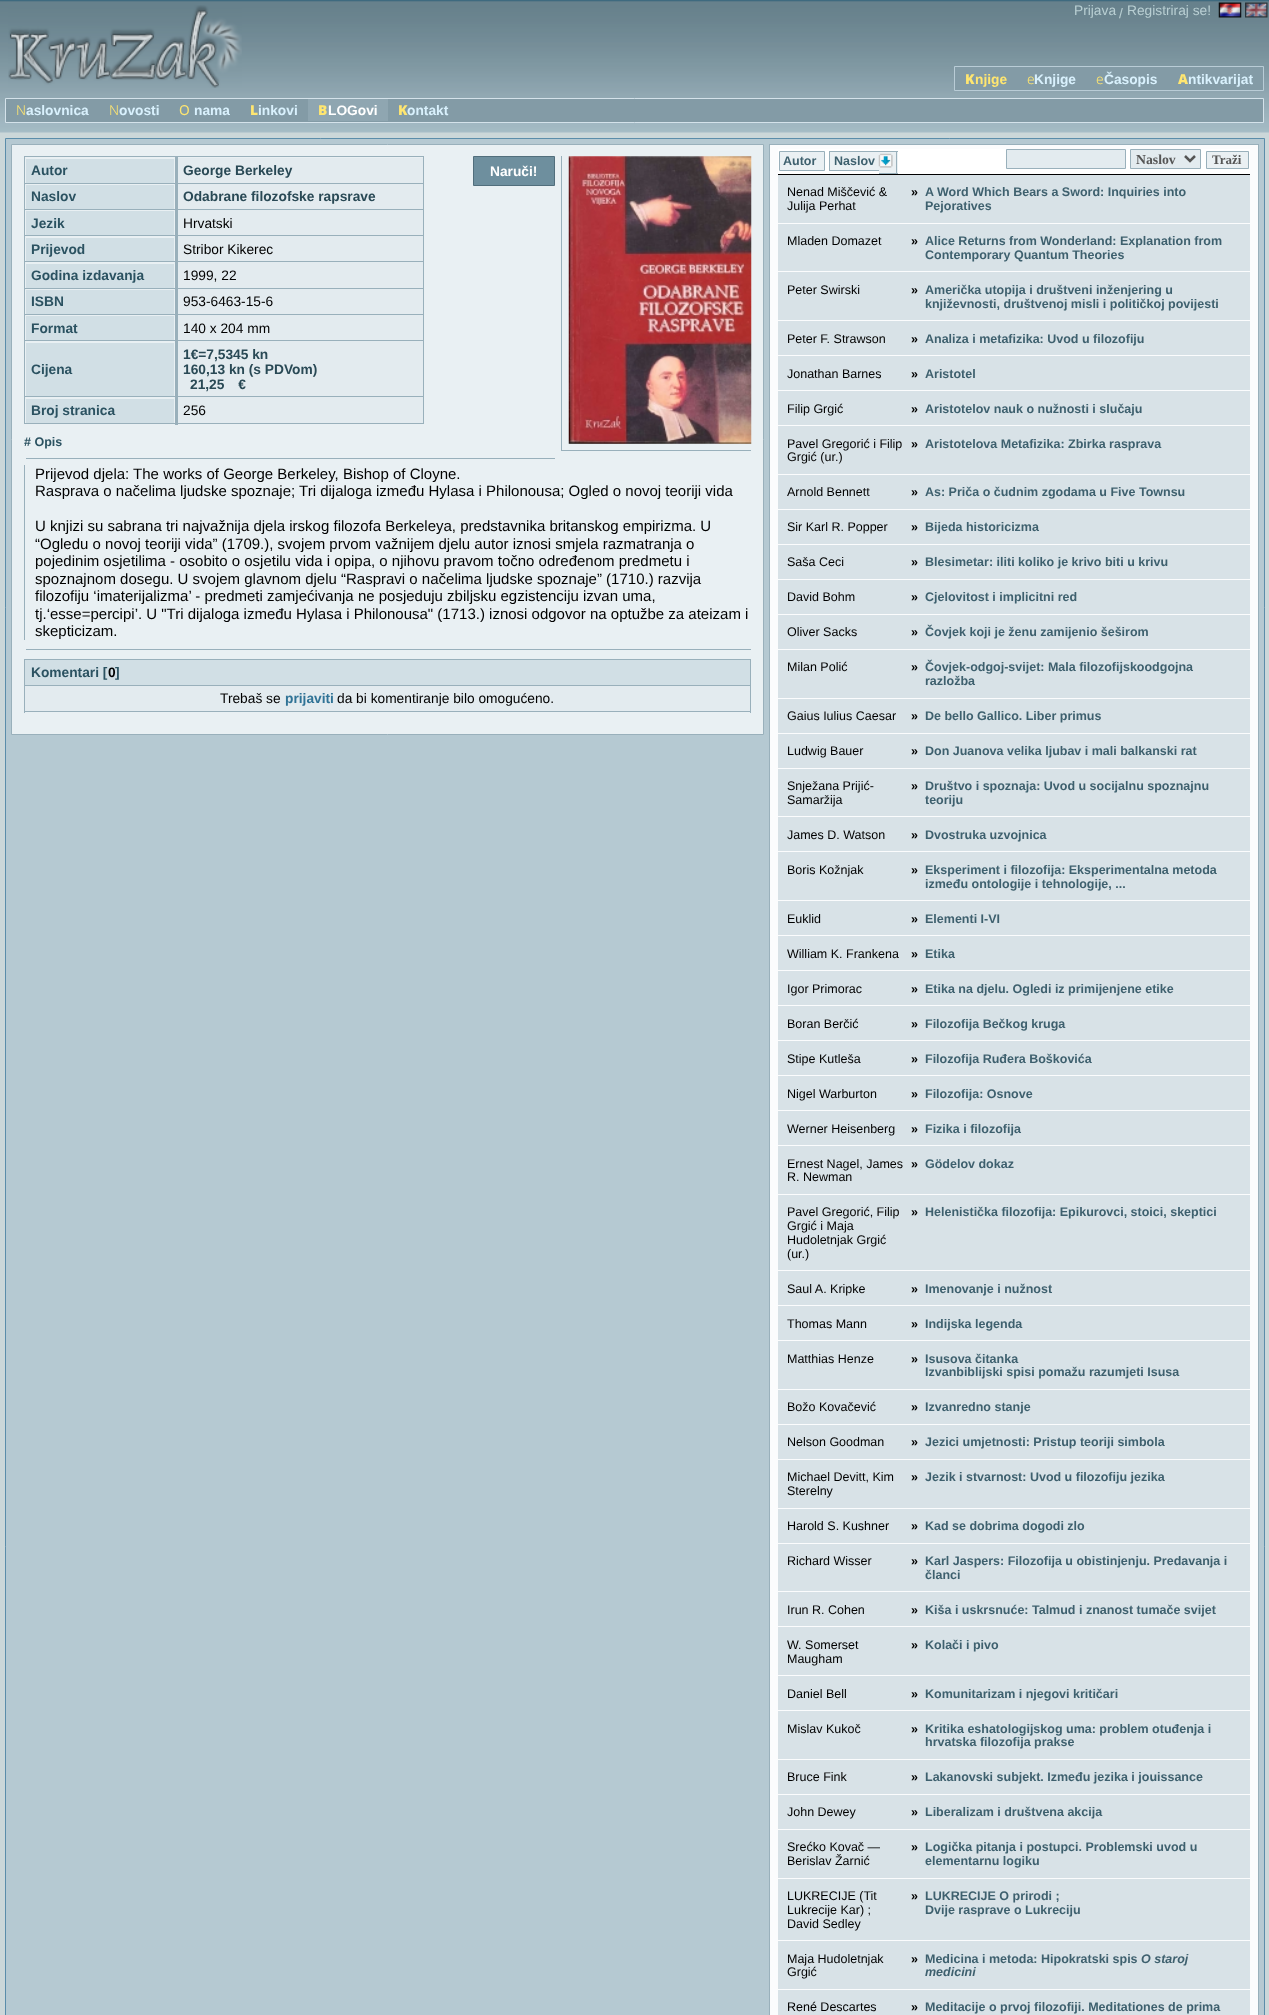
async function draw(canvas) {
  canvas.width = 1269;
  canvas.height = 2015;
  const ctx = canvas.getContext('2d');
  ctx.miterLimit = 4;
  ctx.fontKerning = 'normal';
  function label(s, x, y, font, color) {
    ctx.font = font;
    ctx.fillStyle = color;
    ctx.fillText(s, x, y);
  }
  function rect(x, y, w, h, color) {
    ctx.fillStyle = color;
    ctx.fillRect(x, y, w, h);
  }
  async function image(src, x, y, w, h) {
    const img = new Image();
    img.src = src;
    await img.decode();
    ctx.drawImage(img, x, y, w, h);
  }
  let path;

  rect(0, 0, 1269, 2015, '#cbd7d9');
  await image('assets/img1.png', 0, 0, 1269, 133);
  await image('assets/img2.png', 8, 5, 234, 83);
  label('Prijava', 1074, 15, '13.75px Liberation Sans', '#b9cfd3');
  label('/', 1119, 18, '13.75px Liberation Sans', '#b9cfd3');
  label('Registriraj se!', 1127, 15, '13.75px Liberation Sans', '#b9cfd3');
  await image('assets/img3.png', 1218, 2, 24, 16);
  await image('assets/img4.png', 1245, 2, 23, 16);
  ctx.fillStyle = '#839ba6';
  ctx.beginPath();
  ctx.rect(954.5, 66.5, 309, 24);
  ctx.fill();
  ctx.strokeStyle = '#b9ccd6';
  ctx.stroke();
  label('K', 965, 84, '900 13.75px Noto Sans', '#ffe670');
  label('njige', 975, 84, 'bold 13.75px Liberation Sans', '#ffe670');
  label('e', 1027, 84, '300 13.75px Noto Sans', '#ffe670');
  label('Knjige', 1034, 84, 'bold 13.75px Liberation Sans', '#d9f1fd');
  label('e', 1096, 84, '300 13.75px Noto Sans', '#ffe670');
  label('Časopis', 1104, 84, 'bold 13.75px Liberation Sans', '#d9f1fd');
  label('A', 1178, 84, '900 13.75px Noto Sans', '#ffe670');
  label('ntikvarijat', 1188, 84, 'bold 13.75px Liberation Sans', '#d9f1fd');
  ctx.fillStyle = '#839ba6';
  ctx.beginPath();
  ctx.rect(5.5, 98.5, 1258, 24);
  ctx.fill();
  ctx.strokeStyle = '#d4e2ea';
  ctx.stroke();
  label('N', 16, 115, '300 13.75px Noto Sans', '#ffe670');
  label('aslovnica', 26, 115, 'bold 13.75px Liberation Sans', '#d9f1fd');
  label('N', 109, 115, '300 13.75px Noto Sans', '#ffe670');
  label('ovosti', 119, 115, 'bold 13.75px Liberation Sans', '#d9f1fd');
  label('O', 179, 115, '13.75px Noto Sans', '#ffe670');
  label('nama', 194, 115, 'bold 13.75px Liberation Sans', '#d9f1fd');
  label('L', 250, 115, '900 13.75px Noto Sans', '#ffe670');
  label('inkovi', 258, 115, 'bold 13.75px Liberation Sans', '#d9f1fd');
  rect(308, 99, 80, 22, '#8fa6b1');
  label('B', 318, 115, '900 13.75px Noto Sans', '#ffe670');
  label('LOGovi', 328, 115, 'bold 13.75px Liberation Sans', '#fff');
  label('K', 398, 115, '900 13.75px Noto Sans', '#ffe670');
  label('ontakt', 407, 115, 'bold 13.75px Liberation Sans', '#d9f1fd');
  ctx.fillStyle = '#b5c9d2';
  ctx.beginPath();
  ctx.rect(5.5, 138.5, 1259, 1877);
  ctx.fill();
  ctx.strokeStyle = '#5b8daa';
  ctx.stroke();
  ctx.fillStyle = '#e9f0f3';
  ctx.beginPath();
  ctx.rect(11.5, 144.5, 752, 590);
  ctx.fill();
  ctx.strokeStyle = '#99b0bb';
  ctx.stroke();
  rect(24, 156, 400, 1, '#99b0bb');
  rect(423, 156, 1, 268, '#99b0bb');
  rect(24, 423, 400, 1, '#99b0bb');
  rect(24, 156, 1, 268, '#99b0bb');
  rect(26, 159, 148, 24, '#d1dfe5');
  label('Autor', 31, 175, 'bold 13.75px Liberation Sans', '#2b5261');
  rect(178, 158, 245, 25, '#e3ebef');
  label('George Berkeley', 183, 175, 'bold 13.75px Liberation Sans', '#294955');
  rect(26, 185, 148, 24, '#d1dfe5');
  label('Naslov', 31, 201, 'bold 13.75px Liberation Sans', '#2b5261');
  rect(178, 184, 245, 25, '#e3ebef');
  rect(24, 183, 400, 1, '#99b0bb');
  label('Odabrane filozofske rapsrave', 183, 201, 'bold 13.75px Liberation Sans', '#294955');
  rect(26, 211, 148, 24, '#d1dfe5');
  label('Jezik', 31, 228, 'bold 13.75px Liberation Sans', '#2b5261');
  rect(178, 210, 245, 25, '#e3ebef');
  rect(24, 209, 400, 1, '#99b0bb');
  label('Hrvatski', 183, 228, '13.75px Liberation Sans', '#000');
  rect(26, 238, 148, 23, '#d1dfe5');
  label('Prijevod', 31, 254, 'bold 13.75px Liberation Sans', '#2b5261');
  rect(178, 236, 245, 52, '#e3ebef');
  rect(24, 235, 400, 1, '#99b0bb');
  label('Stribor Kikerec', 183, 254, '13.75px Liberation Sans', '#000');
  rect(26, 264, 148, 24, '#d1dfe5');
  label('Godina izdavanja', 31, 280, 'bold 13.75px Liberation Sans', '#2b5261');
  rect(24, 261, 400, 1, '#99b0bb');
  label('1999, 22', 183, 280, '13.75px Liberation Sans', '#000');
  rect(26, 290, 148, 24, '#d1dfe5');
  label('ISBN', 31, 306, 'bold 13.75px Liberation Sans', '#2b5261');
  rect(178, 289, 245, 25, '#e3ebef');
  rect(24, 288, 400, 1, '#99b0bb');
  label('953-6463-15-6', 183, 306, '13.75px Liberation Sans', '#000');
  rect(26, 316, 148, 24, '#d1dfe5');
  label('Format', 31, 333, 'bold 13.75px Liberation Sans', '#2b5261');
  rect(178, 315, 245, 25, '#e3ebef');
  rect(24, 314, 400, 1, '#99b0bb');
  label('140 x 204 mm', 183, 333, '13.75px Liberation Sans', '#000');
  rect(26, 343, 148, 53, '#d1dfe5');
  label('Cijena', 31, 374, 'bold 13.75px Liberation Sans', '#2b5261');
  rect(178, 341, 245, 82, '#e3ebef');
  rect(24, 340, 400, 1, '#99b0bb');
  label('1€=7,5345 kn', 183, 359, 'bold 13.75px Liberation Sans', '#294955');
  label('160,13 kn (s PDVom)', 183, 374, 'bold 13.75px Liberation Sans', '#294955');
  label('21,25 €', 190, 389, 'bold 13.75px Liberation Sans', '#294955');
  rect(26, 399, 148, 24, '#d1dfe5');
  rect(24, 396, 400, 1, '#99b0bb');
  rect(175, 156, 3, 269, '#99b0bb');
  label('Broj stranica', 31, 415, 'bold 13.75px Liberation Sans', '#2b5261');
  label('256', 183, 415, '13.75px Liberation Sans', '#000');
  ctx.fillStyle = '#6e8f9e';
  ctx.beginPath();
  ctx.rect(473.5, 156.5, 81, 29);
  ctx.fill();
  ctx.strokeStyle = '#516e7c';
  ctx.stroke();
  label('Naruči!', 490, 176, 'bold 13.75px Liberation Sans', '#fff');
  rect(561, 450, 190, 1, '#99b0bb');
  rect(561, 156, 1, 295, '#99b0bb');
  await image('assets/img5.png', 568, 156, 184, 288);
  label('# Opis', 24, 446, 'bold 12.5px Liberation Sans', '#2b5261');
  rect(26, 458, 529, 1, '#99b0bb');
  rect(24, 465, 1, 175, '#99b0bb');
  label('Prijevod djela: The works of George Berkeley, Bishop of Cloyne.', 35, 479, '15px Liberation Sans', '#000');
  label('Rasprava o načelima ljudske spoznaje; Tri dijaloga između Hylasa i Philonousa; Ogled o novoj teoriji vida', 35, 496, '15px Liberation Sans', '#000');
  label('U knjizi su sabrana tri najvažnija djela irskog filozofa Berkeleya, predstavnika britanskog empirizma. U', 35, 531, '15px Liberation Sans', '#000');
  label('“Ogledu o novoj teoriji vida” (1709.), svojem prvom važnijem djelu autor iznosi smjela razmatranja o', 35, 549, '15px Liberation Sans', '#000');
  label('pojedinim osjetilima - osobito o osjetilu vida i opipa, o njihovu pravom točno određenom predmetu i', 35, 566, '15px Liberation Sans', '#000');
  label('spoznajnom dosegu. U svojem glavnom djelu “Raspravi o načelima ljudske spoznaje” (1710.) razvija', 35, 584, '15px Liberation Sans', '#000');
  label('filozofiju ‘imaterijalizma’ - predmeti zamjećivanja ne posjeduju zbiljsku egzistenciju izvan uma,', 35, 601, '15px Liberation Sans', '#000');
  label('tj.‘esse=percipi’. U "Tri dijaloga između Hylasa i Philonousa" (1713.) iznosi odgovor na optužbe za ateizam i', 35, 619, '15px Liberation Sans', '#000');
  label('skepticizam.', 35, 636, '15px Liberation Sans', '#000');
  rect(26, 649, 725, 1, '#99b0bb');
  rect(24, 659, 727, 1, '#99b0bb');
  rect(750, 659, 1, 54, '#99b0bb');
  rect(24, 711, 727, 1, '#99b0bb');
  rect(24, 659, 1, 54, '#99b0bb');
  rect(25, 660, 725, 25, '#d1dfe5');
  label('Komentari [', 31, 677, 'bold 13.75px Liberation Sans', '#2b5261');
  label('0', 108, 677, 'bold 13.75px Liberation Sans', '#000');
  label(']', 115, 677, 'bold 13.75px Liberation Sans', '#2b5261');
  rect(25, 686, 725, 25, '#e3ebef');
  rect(24, 685, 727, 1, '#99b0bb');
  label('Trebaš se', 220, 703, '13.75px Liberation Sans', '#000');
  label('prijaviti', 285, 703, 'bold 13.75px Liberation Sans', '#307396');
  label('da bi komentiranje bilo omogućeno.', 337, 703, '13.75px Liberation Sans', '#000');
  ctx.strokeStyle = '#99b0bb';
  ctx.strokeRect(769.5, 144.5, 489, 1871);
  rect(770, 145, 488, 4, '#fbfcfd');
  rect(1250, 145, 8, 1870, '#fbfcfd');
  rect(770, 145, 8, 1870, '#fbfcfd');
  rect(778, 149, 472, 25, '#fff');
  rect(778, 174, 472, 1, '#000');
  ctx.fillStyle = '#eaf0f3';
  ctx.beginPath();
  ctx.rect(779.5, 151.5, 45, 19);
  ctx.fill();
  ctx.stroke();
  label('Autor', 783, 165, 'bold 12.5px Liberation Sans', '#3e606e');
  rect(830, 152, 49, 18, '#eaf0f3');
  label('Naslov', 834, 165, 'bold 12.5px Liberation Sans', '#3e606e');
  rect(829, 151, 69, 1, '#99b0bb');
  rect(829, 170, 50, 1, '#99b0bb');
  rect(829, 151, 1, 20, '#99b0bb');
  rect(879, 152, 19, 21, '#eaf0f3');
  rect(896, 151, 1, 23, '#99b0bb');
  rect(879, 173, 19, 1, '#99b0bb');
  await image('assets/img6.png', 878, 153, 15, 15);
  ctx.fillStyle = '#e3ebef';
  ctx.beginPath();
  ctx.rect(1006.5, 149.5, 119, 19);
  ctx.fill();
  ctx.stroke();
  ctx.beginPath();
  ctx.rect(1130.5, 149.5, 70, 19);
  ctx.fill();
  ctx.stroke();
  path = new Path2D('M1185 156L1190 161L1195 156');
  ctx.strokeStyle = '#555';
  ctx.lineWidth = 2.5;
  ctx.stroke(path);
  label('Naslov', 1136, 164, 'bold 13.75px Liberation Serif', '#555');
  ctx.fillStyle = '#eaf0f3';
  ctx.beginPath();
  ctx.rect(1206.5, 151.5, 42, 17);
  ctx.fill();
  ctx.strokeStyle = '#99b0bb';
  ctx.lineWidth = 1;
  ctx.stroke();
  label('Traži', 1212, 164, 'bold 13px Liberation Serif', '#555');
  rect(778, 175, 472, 48, '#d8e2e7');
  rect(778, 223, 472, 1, '#fbfcfd');
  label('Nenad Miščević &', 787, 196, '12.5px Liberation Sans', '#000');
  label('Julija Perhat', 787, 210, '12.5px Liberation Sans', '#000');
  label('»', 911, 196, 'bold 12.5px Liberation Sans', '#000');
  label('A Word Which Bears a Sword: Inquiries into', 925, 196, 'bold 12.5px Liberation Sans', '#3e606e');
  label('Pejoratives', 925, 210, 'bold 12.5px Liberation Sans', '#3e606e');
  rect(778, 224, 472, 96, '#d8e2e7');
  rect(778, 271, 472, 1, '#fbfcfd');
  label('Mladen Domazet', 787, 245, '12.5px Liberation Sans', '#000');
  label('»', 911, 245, 'bold 12.5px Liberation Sans', '#000');
  label('Alice Returns from Wonderland: Explanation from', 925, 245, 'bold 12.5px Liberation Sans', '#3e606e');
  label('Contemporary Quantum Theories', 925, 259, 'bold 12.5px Liberation Sans', '#3e606e');
  rect(778, 320, 472, 1, '#fbfcfd');
  label('Peter Swirski', 787, 294, '12.5px Liberation Sans', '#000');
  label('»', 911, 294, 'bold 12.5px Liberation Sans', '#000');
  label('Američka utopija i društveni inženjering u', 925, 294, 'bold 12.5px Liberation Sans', '#3e606e');
  label('književnosti, društvenoj misli i političkoj povijesti', 925, 308, 'bold 12.5px Liberation Sans', '#3e606e');
  rect(778, 321, 472, 34, '#d8e2e7');
  rect(778, 355, 472, 1, '#fbfcfd');
  label('Peter F. Strawson', 787, 343, '12.5px Liberation Sans', '#000');
  label('»', 911, 343, 'bold 12.5px Liberation Sans', '#000');
  label('Analiza i metafizika: Uvod u filozofiju', 925, 343, 'bold 12.5px Liberation Sans', '#3e606e');
  rect(778, 356, 472, 34, '#d8e2e7');
  rect(778, 390, 472, 1, '#fbfcfd');
  label('Jonathan Barnes', 787, 378, '12.5px Liberation Sans', '#000');
  label('»', 911, 378, 'bold 12.5px Liberation Sans', '#000');
  label('Aristotel', 925, 378, 'bold 12.5px Liberation Sans', '#3e606e');
  rect(778, 391, 472, 34, '#d8e2e7');
  rect(778, 425, 472, 1, '#fbfcfd');
  label('Filip Grgić', 787, 413, '12.5px Liberation Sans', '#000');
  label('»', 911, 413, 'bold 12.5px Liberation Sans', '#000');
  label('Aristotelov nauk o nužnosti i slučaju', 925, 413, 'bold 12.5px Liberation Sans', '#3e606e');
  rect(778, 426, 472, 48, '#d8e2e7');
  rect(778, 474, 472, 1, '#fbfcfd');
  label('Pavel Gregorić i Filip', 787, 448, '12.5px Liberation Sans', '#000');
  label('Grgić (ur.)', 787, 461, '12.5px Liberation Sans', '#000');
  label('»', 911, 448, 'bold 12.5px Liberation Sans', '#000');
  label('Aristotelova Metafizika: Zbirka rasprava', 925, 448, 'bold 12.5px Liberation Sans', '#3e606e');
  rect(778, 475, 472, 34, '#d8e2e7');
  rect(778, 509, 472, 1, '#fbfcfd');
  label('Arnold Bennett', 787, 496, '12.5px Liberation Sans', '#000');
  label('»', 911, 496, 'bold 12.5px Liberation Sans', '#000');
  label('As: Priča o čudnim zgodama u Five Townsu', 925, 496, 'bold 12.5px Liberation Sans', '#3e606e');
  rect(778, 510, 472, 34, '#d8e2e7');
  rect(778, 544, 472, 1, '#fbfcfd');
  label('Sir Karl R. Popper', 787, 531, '12.5px Liberation Sans', '#000');
  label('»', 911, 531, 'bold 12.5px Liberation Sans', '#000');
  label('Bijeda historicizma', 925, 531, 'bold 12.5px Liberation Sans', '#3e606e');
  rect(778, 545, 472, 34, '#d8e2e7');
  rect(778, 579, 472, 1, '#fbfcfd');
  label('Saša Ceci', 787, 566, '12.5px Liberation Sans', '#000');
  label('»', 911, 566, 'bold 12.5px Liberation Sans', '#000');
  label('Blesimetar: iliti koliko je krivo biti u krivu', 925, 566, 'bold 12.5px Liberation Sans', '#3e606e');
  rect(778, 580, 472, 34, '#d8e2e7');
  rect(778, 614, 472, 1, '#fbfcfd');
  label('David Bohm', 787, 601, '12.5px Liberation Sans', '#000');
  label('»', 911, 601, 'bold 12.5px Liberation Sans', '#000');
  label('Cjelovitost i implicitni red', 925, 601, 'bold 12.5px Liberation Sans', '#3e606e');
  rect(778, 615, 472, 34, '#d8e2e7');
  rect(778, 649, 472, 1, '#fbfcfd');
  label('Oliver Sacks', 787, 636, '12.5px Liberation Sans', '#000');
  label('»', 911, 636, 'bold 12.5px Liberation Sans', '#000');
  label('Čovjek koji je ženu zamijenio šeširom', 925, 636, 'bold 12.5px Liberation Sans', '#3e606e');
  rect(778, 650, 472, 48, '#d8e2e7');
  rect(778, 698, 472, 1, '#fbfcfd');
  label('Milan Polić', 787, 671, '12.5px Liberation Sans', '#000');
  label('»', 911, 671, 'bold 12.5px Liberation Sans', '#000');
  label('Čovjek-odgoj-svijet: Mala filozofijskoodgojna', 925, 671, 'bold 12.5px Liberation Sans', '#3e606e');
  label('razložba', 925, 685, 'bold 12.5px Liberation Sans', '#3e606e');
  rect(778, 699, 472, 34, '#d8e2e7');
  rect(778, 733, 472, 1, '#fbfcfd');
  label('Gaius Iulius Caesar', 787, 720, '12.5px Liberation Sans', '#000');
  label('»', 911, 720, 'bold 12.5px Liberation Sans', '#000');
  label('De bello Gallico. Liber primus', 925, 720, 'bold 12.5px Liberation Sans', '#3e606e');
  rect(778, 734, 472, 34, '#d8e2e7');
  rect(778, 768, 472, 1, '#fbfcfd');
  label('Ludwig Bauer', 787, 755, '12.5px Liberation Sans', '#000');
  label('»', 911, 755, 'bold 12.5px Liberation Sans', '#000');
  label('Don Juanova velika ljubav i mali balkanski rat', 925, 755, 'bold 12.5px Liberation Sans', '#3e606e');
  rect(778, 769, 472, 131, '#d8e2e7');
  rect(778, 816, 472, 1, '#fbfcfd');
  label('Snježana Prijić-', 787, 790, '12.5px Liberation Sans', '#000');
  label('Samaržija', 787, 804, '12.5px Liberation Sans', '#000');
  label('»', 911, 790, 'bold 12.5px Liberation Sans', '#000');
  label('Društvo i spoznaja: Uvod u socijalnu spoznajnu', 925, 790, 'bold 12.5px Liberation Sans', '#3e606e');
  label('teoriju', 925, 804, 'bold 12.5px Liberation Sans', '#3e606e');
  rect(778, 851, 472, 1, '#fbfcfd');
  label('James D. Watson', 787, 839, '12.5px Liberation Sans', '#000');
  label('»', 911, 839, 'bold 12.5px Liberation Sans', '#000');
  label('Dvostruka uzvojnica', 925, 839, 'bold 12.5px Liberation Sans', '#3e606e');
  rect(778, 900, 472, 1, '#fbfcfd');
  label('Boris Kožnjak', 787, 874, '12.5px Liberation Sans', '#000');
  label('»', 911, 874, 'bold 12.5px Liberation Sans', '#000');
  label('Eksperiment i filozofija: Eksperimentalna metoda', 925, 874, 'bold 12.5px Liberation Sans', '#3e606e');
  label('između ontologije i tehnologije, ...', 925, 888, 'bold 12.5px Liberation Sans', '#3e606e');
  rect(778, 901, 472, 34, '#d8e2e7');
  rect(778, 935, 472, 1, '#fbfcfd');
  label('Euklid', 787, 923, '12.5px Liberation Sans', '#000');
  label('»', 911, 923, 'bold 12.5px Liberation Sans', '#000');
  label('Elementi I-VI', 925, 923, 'bold 12.5px Liberation Sans', '#3e606e');
  rect(778, 936, 472, 34, '#d8e2e7');
  rect(778, 970, 472, 1, '#fbfcfd');
  label('William K. Frankena', 787, 958, '12.5px Liberation Sans', '#000');
  label('»', 911, 958, 'bold 12.5px Liberation Sans', '#000');
  label('Etika', 925, 958, 'bold 12.5px Liberation Sans', '#3e606e');
  rect(778, 971, 472, 34, '#d8e2e7');
  rect(778, 1005, 472, 1, '#fbfcfd');
  label('Igor Primorac', 787, 993, '12.5px Liberation Sans', '#000');
  label('»', 911, 993, 'bold 12.5px Liberation Sans', '#000');
  label('Etika na djelu. Ogledi iz primijenjene etike', 925, 993, 'bold 12.5px Liberation Sans', '#3e606e');
  rect(778, 1006, 472, 34, '#d8e2e7');
  rect(778, 1040, 472, 1, '#fbfcfd');
  label('Boran Berčić', 787, 1028, '12.5px Liberation Sans', '#000');
  label('»', 911, 1028, 'bold 12.5px Liberation Sans', '#000');
  label('Filozofija Bečkog kruga', 925, 1028, 'bold 12.5px Liberation Sans', '#3e606e');
  rect(778, 1041, 472, 34, '#d8e2e7');
  rect(778, 1075, 472, 1, '#fbfcfd');
  label('Stipe Kutleša', 787, 1063, '12.5px Liberation Sans', '#000');
  label('»', 911, 1063, 'bold 12.5px Liberation Sans', '#000');
  label('Filozofija Ruđera Boškovića', 925, 1063, 'bold 12.5px Liberation Sans', '#3e606e');
  rect(778, 1076, 472, 34, '#d8e2e7');
  rect(778, 1110, 472, 1, '#fbfcfd');
  label('Nigel Warburton', 787, 1098, '12.5px Liberation Sans', '#000');
  label('»', 911, 1098, 'bold 12.5px Liberation Sans', '#000');
  label('Filozofija: Osnove', 925, 1098, 'bold 12.5px Liberation Sans', '#3e606e');
  rect(778, 1111, 472, 34, '#d8e2e7');
  rect(778, 1145, 472, 1, '#fbfcfd');
  label('Werner Heisenberg', 787, 1133, '12.5px Liberation Sans', '#000');
  label('»', 911, 1133, 'bold 12.5px Liberation Sans', '#000');
  label('Fizika i filozofija', 925, 1133, 'bold 12.5px Liberation Sans', '#3e606e');
  rect(778, 1146, 472, 48, '#d8e2e7');
  rect(778, 1194, 472, 1, '#fbfcfd');
  label('Ernest Nagel, James', 787, 1168, '12.5px Liberation Sans', '#000');
  label('R. Newman', 787, 1181, '12.5px Liberation Sans', '#000');
  label('»', 911, 1168, 'bold 12.5px Liberation Sans', '#000');
  label('Gödelov dokaz', 925, 1168, 'bold 12.5px Liberation Sans', '#3e606e');
  rect(778, 1195, 472, 75, '#d8e2e7');
  rect(778, 1270, 472, 1, '#fbfcfd');
  label('Pavel Gregorić, Filip', 787, 1216, '12.5px Liberation Sans', '#000');
  label('Grgić i Maja', 787, 1230, '12.5px Liberation Sans', '#000');
  label('Hudoletnjak Grgić', 787, 1244, '12.5px Liberation Sans', '#000');
  label('(ur.)', 787, 1258, '12.5px Liberation Sans', '#000');
  label('»', 911, 1216, 'bold 12.5px Liberation Sans', '#000');
  label('Helenistička filozofija: Epikurovci, stoici, skeptici', 925, 1216, 'bold 12.5px Liberation Sans', '#3e606e');
  rect(778, 1271, 472, 34, '#d8e2e7');
  rect(778, 1305, 472, 1, '#fbfcfd');
  label('Saul A. Kripke', 787, 1293, '12.5px Liberation Sans', '#000');
  label('»', 911, 1293, 'bold 12.5px Liberation Sans', '#000');
  label('Imenovanje i nužnost', 925, 1293, 'bold 12.5px Liberation Sans', '#3e606e');
  rect(778, 1306, 472, 34, '#d8e2e7');
  rect(778, 1340, 472, 1, '#fbfcfd');
  label('Thomas Mann', 787, 1328, '12.5px Liberation Sans', '#000');
  label('»', 911, 1328, 'bold 12.5px Liberation Sans', '#000');
  label('Indijska legenda', 925, 1328, 'bold 12.5px Liberation Sans', '#3e606e');
  rect(778, 1341, 472, 48, '#d8e2e7');
  rect(778, 1389, 472, 1, '#fbfcfd');
  label('Matthias Henze', 787, 1363, '12.5px Liberation Sans', '#000');
  label('»', 911, 1363, 'bold 12.5px Liberation Sans', '#000');
  label('Isusova čitanka', 925, 1363, 'bold 12.5px Liberation Sans', '#3e606e');
  label('Izvanbiblijski spisi pomažu razumjeti Isusa', 925, 1376, 'bold 12.5px Liberation Sans', '#3e606e');
  rect(778, 1390, 472, 34, '#d8e2e7');
  rect(778, 1424, 472, 1, '#fbfcfd');
  label('Božo Kovačević', 787, 1411, '12.5px Liberation Sans', '#000');
  label('»', 911, 1411, 'bold 12.5px Liberation Sans', '#000');
  label('Izvanredno stanje', 925, 1411, 'bold 12.5px Liberation Sans', '#3e606e');
  rect(778, 1425, 472, 34, '#d8e2e7');
  rect(778, 1459, 472, 1, '#fbfcfd');
  label('Nelson Goodman', 787, 1446, '12.5px Liberation Sans', '#000');
  label('»', 911, 1446, 'bold 12.5px Liberation Sans', '#000');
  label('Jezici umjetnosti: Pristup teoriji simbola', 925, 1446, 'bold 12.5px Liberation Sans', '#3e606e');
  rect(778, 1460, 472, 48, '#d8e2e7');
  rect(778, 1508, 472, 1, '#fbfcfd');
  label('Michael Devitt, Kim', 787, 1481, '12.5px Liberation Sans', '#000');
  label('Sterelny', 787, 1495, '12.5px Liberation Sans', '#000');
  label('»', 911, 1481, 'bold 12.5px Liberation Sans', '#000');
  label('Jezik i stvarnost: Uvod u filozofiju jezika', 925, 1481, 'bold 12.5px Liberation Sans', '#3e606e');
  rect(778, 1509, 472, 34, '#d8e2e7');
  rect(778, 1543, 472, 1, '#fbfcfd');
  label('Harold S. Kushner', 787, 1530, '12.5px Liberation Sans', '#000');
  label('»', 911, 1530, 'bold 12.5px Liberation Sans', '#000');
  label('Kad se dobrima dogodi zlo', 925, 1530, 'bold 12.5px Liberation Sans', '#3e606e');
  rect(778, 1544, 472, 131, '#d8e2e7');
  rect(778, 1591, 472, 1, '#fbfcfd');
  label('Richard Wisser', 787, 1565, '12.5px Liberation Sans', '#000');
  label('»', 911, 1565, 'bold 12.5px Liberation Sans', '#000');
  label('Karl Jaspers: Filozofija u obistinjenju. Predavanja i', 925, 1565, 'bold 12.5px Liberation Sans', '#3e606e');
  label('članci', 925, 1579, 'bold 12.5px Liberation Sans', '#3e606e');
  rect(778, 1626, 472, 1, '#fbfcfd');
  label('Irun R. Cohen', 787, 1614, '12.5px Liberation Sans', '#000');
  label('»', 911, 1614, 'bold 12.5px Liberation Sans', '#000');
  label('Kiša i uskrsnuće: Talmud i znanost tumače svijet', 925, 1614, 'bold 12.5px Liberation Sans', '#3e606e');
  rect(778, 1675, 472, 1, '#fbfcfd');
  label('W. Somerset', 787, 1649, '12.5px Liberation Sans', '#000');
  label('Maugham', 787, 1663, '12.5px Liberation Sans', '#000');
  label('»', 911, 1649, 'bold 12.5px Liberation Sans', '#000');
  label('Kolači i pivo', 925, 1649, 'bold 12.5px Liberation Sans', '#3e606e');
  rect(778, 1676, 472, 34, '#d8e2e7');
  rect(778, 1710, 472, 1, '#fbfcfd');
  label('Daniel Bell', 787, 1698, '12.5px Liberation Sans', '#000');
  label('»', 911, 1698, 'bold 12.5px Liberation Sans', '#000');
  label('Komunitarizam i njegovi kritičari', 925, 1698, 'bold 12.5px Liberation Sans', '#3e606e');
  rect(778, 1711, 472, 48, '#d8e2e7');
  rect(778, 1759, 472, 1, '#fbfcfd');
  label('Mislav Kukoč', 787, 1733, '12.5px Liberation Sans', '#000');
  label('»', 911, 1733, 'bold 12.5px Liberation Sans', '#000');
  label('Kritika eshatologijskog uma: problem otuđenja i', 925, 1733, 'bold 12.5px Liberation Sans', '#3e606e');
  label('hrvatska filozofija prakse', 925, 1746, 'bold 12.5px Liberation Sans', '#3e606e');
  rect(778, 1760, 472, 34, '#d8e2e7');
  rect(778, 1794, 472, 1, '#fbfcfd');
  label('Bruce Fink', 787, 1781, '12.5px Liberation Sans', '#000');
  label('»', 911, 1781, 'bold 12.5px Liberation Sans', '#000');
  label('Lakanovski subjekt. Između jezika i jouissance', 925, 1781, 'bold 12.5px Liberation Sans', '#3e606e');
  rect(778, 1795, 472, 34, '#d8e2e7');
  rect(778, 1829, 472, 1, '#fbfcfd');
  label('John Dewey', 787, 1816, '12.5px Liberation Sans', '#000');
  label('»', 911, 1816, 'bold 12.5px Liberation Sans', '#000');
  label('Liberalizam i društvena akcija', 925, 1816, 'bold 12.5px Liberation Sans', '#3e606e');
  rect(778, 1830, 472, 48, '#d8e2e7');
  rect(778, 1878, 472, 1, '#fbfcfd');
  label('Srećko Kovač —', 787, 1851, '12.5px Liberation Sans', '#000');
  label('Berislav Žarnić', 787, 1865, '12.5px Liberation Sans', '#000');
  label('»', 911, 1851, 'bold 12.5px Liberation Sans', '#000');
  label('Logička pitanja i postupci. Problemski uvod u', 925, 1851, 'bold 12.5px Liberation Sans', '#3e606e');
  label('elementarnu logiku', 925, 1865, 'bold 12.5px Liberation Sans', '#3e606e');
  rect(778, 1879, 472, 61, '#d8e2e7');
  rect(778, 1940, 472, 1, '#fbfcfd');
  label('LUKRECIJE (Tit', 787, 1900, '12.5px Liberation Sans', '#000');
  label('Lukrecije Kar) ;', 787, 1914, '12.5px Liberation Sans', '#000');
  label('David Sedley', 787, 1928, '12.5px Liberation Sans', '#000');
  label('»', 911, 1900, 'bold 12.5px Liberation Sans', '#000');
  label('LUKRECIJE O prirodi ;', 925, 1900, 'bold 12.5px Liberation Sans', '#3e606e');
  label('Dvije rasprave o Lukreciju', 925, 1914, 'bold 12.5px Liberation Sans', '#3e606e');
  rect(778, 1941, 472, 48, '#d8e2e7');
  rect(778, 1989, 472, 1, '#fbfcfd');
  label('Maja Hudoletnjak', 787, 1963, '12.5px Liberation Sans', '#000');
  label('Grgić', 787, 1976, '12.5px Liberation Sans', '#000');
  label('»', 911, 1963, 'bold 12.5px Liberation Sans', '#000');
  label('Medicina i metoda: Hipokratski spis', 925, 1963, 'bold 12.5px Liberation Sans', '#3e606e');
  label('O staroj', 1141, 1963, 'italic bold 12.5px Liberation Sans', '#3e606e');
  label('medicini', 925, 1976, 'italic bold 12.5px Liberation Sans', '#3e606e');
  rect(778, 1990, 472, 25, '#d8e2e7');
  label('René Descartes', 787, 2011, '12.5px Liberation Sans', '#000');
  label('»', 911, 2011, 'bold 12.5px Liberation Sans', '#000');
  label('Meditacije o prvoj filozofiji. Meditationes de prima', 925, 2011, 'bold 12.5px Liberation Sans', '#3e606e');
}

draw(document.querySelector('canvas'));
